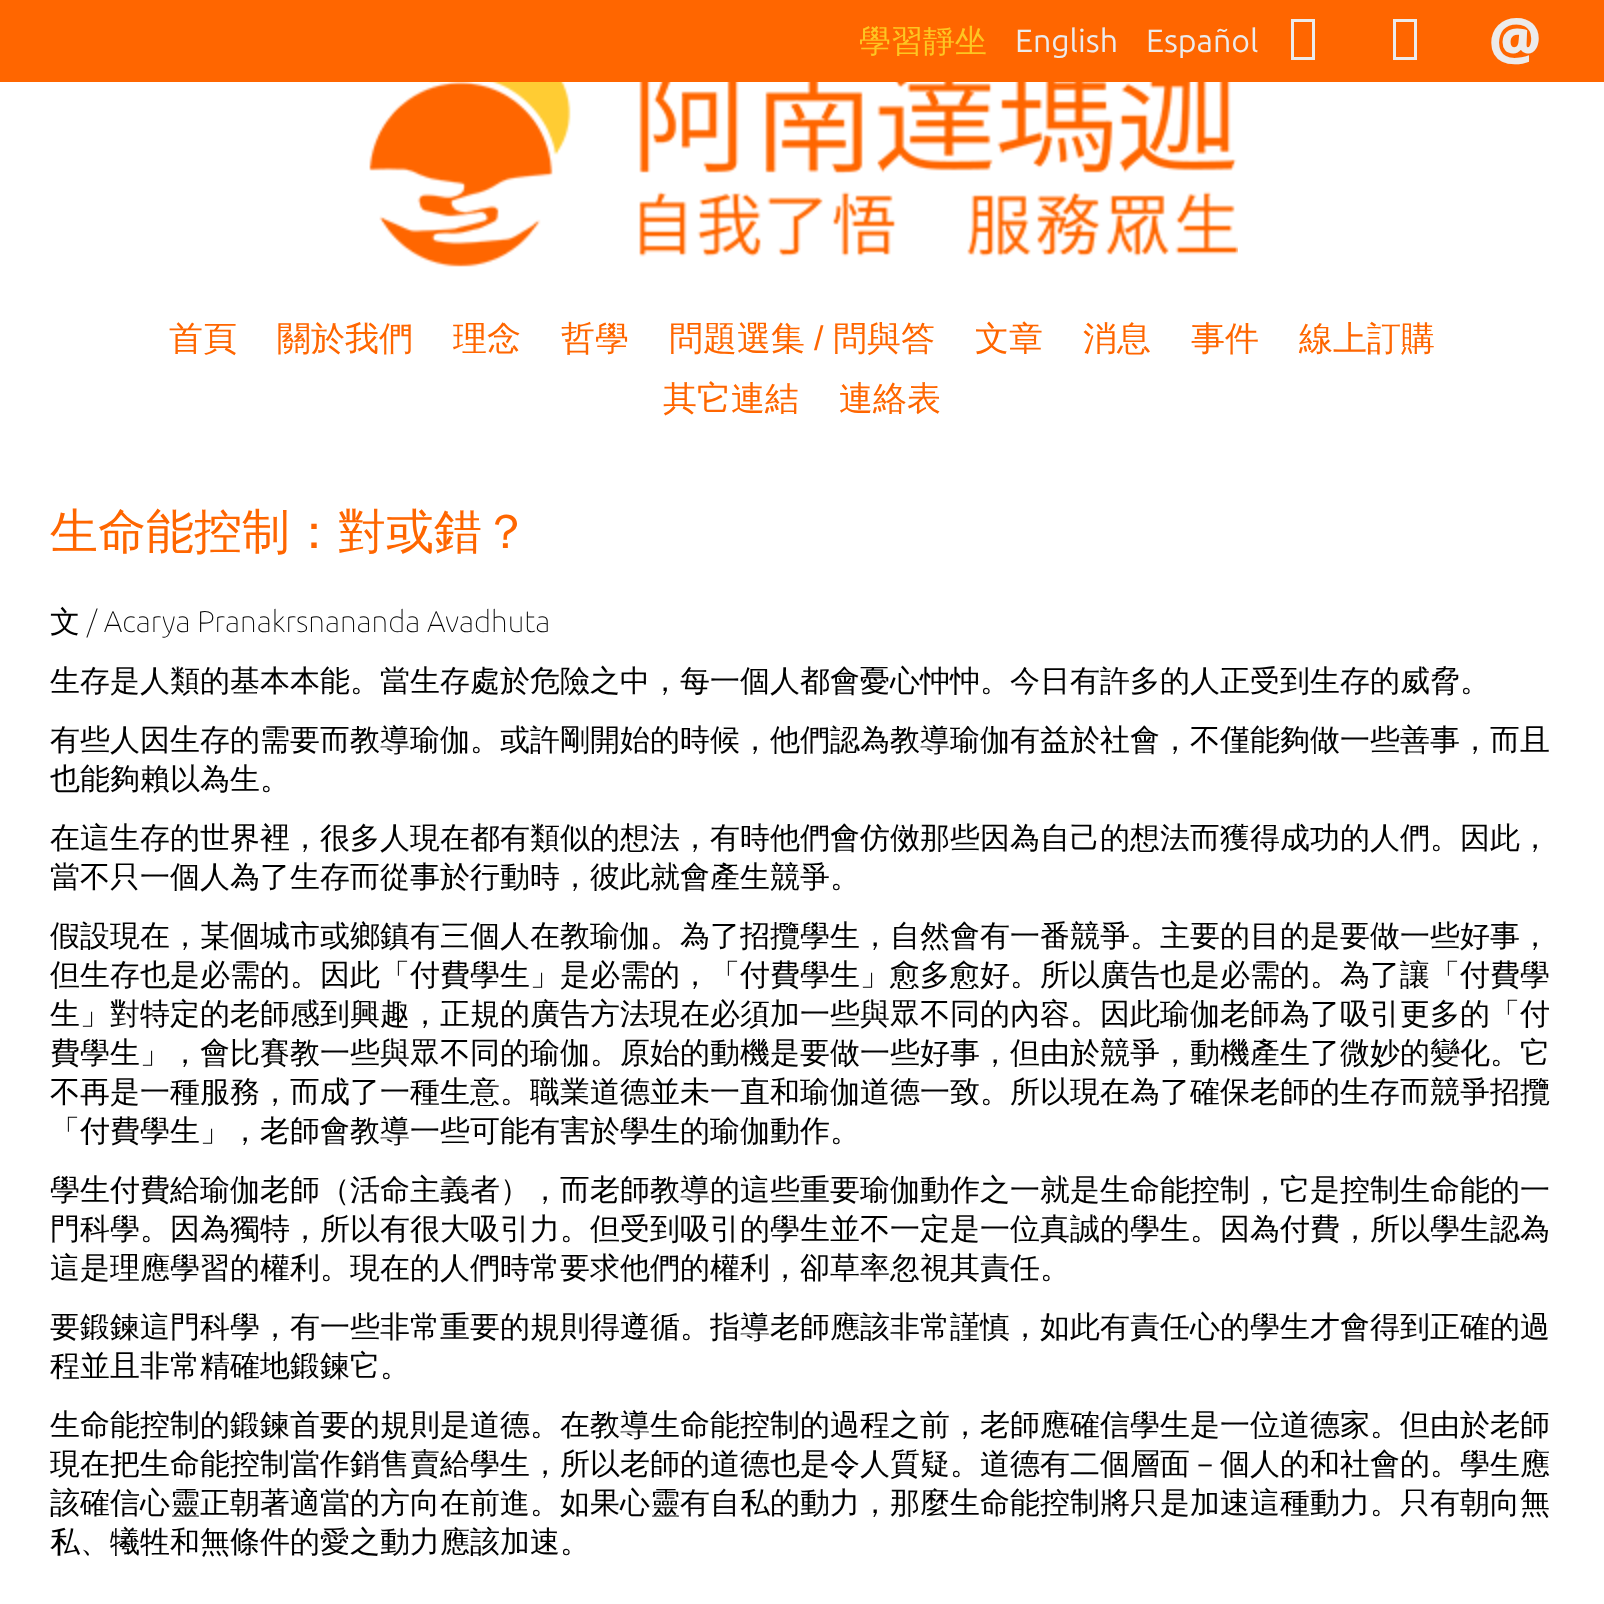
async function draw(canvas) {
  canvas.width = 1604;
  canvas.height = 1604;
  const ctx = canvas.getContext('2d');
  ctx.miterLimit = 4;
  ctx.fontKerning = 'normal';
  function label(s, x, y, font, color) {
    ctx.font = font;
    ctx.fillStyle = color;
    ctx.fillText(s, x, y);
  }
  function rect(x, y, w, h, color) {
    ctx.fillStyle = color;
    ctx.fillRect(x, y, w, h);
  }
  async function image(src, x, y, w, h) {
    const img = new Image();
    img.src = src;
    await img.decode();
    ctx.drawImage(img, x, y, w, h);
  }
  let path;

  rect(0, 0, 1604, 1604, '#fff');
  rect(0, 0, 1604, 82, '#f60');
  label('學習靜坐', 859, 52, '500 32px WenQuanYi Zen Hei', '#fdc622');
  label('English', 1015, 52, '32px Ubuntu', '#ecebeb');
  label('Español', 1146, 52, '32px Ubuntu', '#ecebeb');
  path = new Path2D('M1291 60V19H1315V60ZM1294 57H1312V22H1294Z');
  ctx.fill(path);
  path = new Path2D('M1393 60V19H1417V60ZM1396 57H1414V22H1396Z');
  ctx.fill(path);
  label('@', 1489, 60, '900 58px Noto Sans', '#ecebeb');
  await image('assets/img1.png', 369, 82, 869, 185);
  label('首頁', 169, 350, '500 34px WenQuanYi Zen Hei', '#f60');
  label('關於我們', 277, 350, '500 34px WenQuanYi Zen Hei', '#f60');
  label('理念', 453, 350, '500 34px WenQuanYi Zen Hei', '#f60');
  label('哲學', 561, 350, '500 34px WenQuanYi Zen Hei', '#f60');
  label('問題選集', 669, 350, '500 34px WenQuanYi Zen Hei', '#f60');
  label('/', 814, 350, '34px Liberation Sans', '#f60');
  label('問與答', 833, 350, '500 34px WenQuanYi Zen Hei', '#f60');
  label('文章', 975, 350, '500 34px WenQuanYi Zen Hei', '#f60');
  label('消息', 1083, 350, '500 34px WenQuanYi Zen Hei', '#f60');
  label('事件', 1191, 350, '500 34px WenQuanYi Zen Hei', '#f60');
  label('線上訂購', 1299, 350, '500 34px WenQuanYi Zen Hei', '#f60');
  label('其它連結', 663, 410, '500 34px WenQuanYi Zen Hei', '#f60');
  label('連絡表', 839, 410, '500 34px WenQuanYi Zen Hei', '#f60');
  label('生命能控制：對或錯？', 50, 548, '500 48px WenQuanYi Zen Hei', '#f60');
  label('文', 50, 632, '500 30px WenQuanYi Zen Hei', '#000');
  label('/ Acarya Pranakrsnananda Avadhuta', 87, 632, '100 30px Ubuntu', '#000');
  label('生存是人類的基本本能。當生存處於危險之中，每一個人都會憂心忡忡。今日有許多的人正受到生存的威脅。', 50, 691, '500 30px WenQuanYi Zen Hei', '#000');
  label('有些人因生存的需要而教導瑜伽。或許剛開始的時候，他們認為教導瑜伽有益於社會，不僅能夠做一些善事，而且', 50, 750, '500 30px WenQuanYi Zen Hei', '#000');
  label('也能夠賴以為生。', 50, 789, '500 30px WenQuanYi Zen Hei', '#000');
  label('在這生存的世界裡，很多人現在都有類似的想法，有時他們會仿傚那些因為自己的想法而獲得成功的人們。因此，', 50, 848, '500 30px WenQuanYi Zen Hei', '#000');
  label('當不只一個人為了生存而從事於行動時，彼此就會產生競爭。', 50, 887, '500 30px WenQuanYi Zen Hei', '#000');
  label('假設現在，某個城市或鄉鎮有三個人在教瑜伽。為了招攬學生，自然會有一番競爭。主要的目的是要做一些好事，', 50, 946, '500 30px WenQuanYi Zen Hei', '#000');
  label('但生存也是必需的。因此「付費學生」是必需的，「付費學生」愈多愈好。所以廣告也是必需的。為了讓「付費學', 50, 985, '500 30px WenQuanYi Zen Hei', '#000');
  label('生」對特定的老師感到興趣，正規的廣告方法現在必須加一些與眾不同的內容。因此瑜伽老師為了吸引更多的「付', 50, 1024, '500 30px WenQuanYi Zen Hei', '#000');
  label('費學生」，會比賽教一些與眾不同的瑜伽。原始的動機是要做一些好事，但由於競爭，動機產生了微妙的變化。它', 50, 1063, '500 30px WenQuanYi Zen Hei', '#000');
  label('不再是一種服務，而成了一種生意。職業道德並未一直和瑜伽道德一致。所以現在為了確保老師的生存而競爭招攬', 50, 1102, '500 30px WenQuanYi Zen Hei', '#000');
  label('「付費學生」，老師會教導一些可能有害於學生的瑜伽動作。', 50, 1141, '500 30px WenQuanYi Zen Hei', '#000');
  label('學生付費給瑜伽老師（活命主義者），而老師教導的這些重要瑜伽動作之一就是生命能控制，它是控制生命能的一', 50, 1200, '500 30px WenQuanYi Zen Hei', '#000');
  label('門科學。因為獨特，所以有很大吸引力。但受到吸引的學生並不一定是一位真誠的學生。因為付費，所以學生認為', 50, 1239, '500 30px WenQuanYi Zen Hei', '#000');
  label('這是理應學習的權利。現在的人們時常要求他們的權利，卻草率忽視其責任。', 50, 1278, '500 30px WenQuanYi Zen Hei', '#000');
  label('要鍛鍊這門科學，有一些非常重要的規則得遵循。指導老師應該非常謹慎，如此有責任心的學生才會得到正確的過', 50, 1337, '500 30px WenQuanYi Zen Hei', '#000');
  label('程並且非常精確地鍛鍊它。', 50, 1376, '500 30px WenQuanYi Zen Hei', '#000');
  label('生命能控制的鍛鍊首要的規則是道德。在教導生命能控制的過程之前，老師應確信學生是一位道德家。但由於老師', 50, 1435, '500 30px WenQuanYi Zen Hei', '#000');
  label('現在把生命能控制當作銷售賣給學生，所以老師的道德也是令人質疑。道德有二個層面－個人的和社會的。學生應', 50, 1474, '500 30px WenQuanYi Zen Hei', '#000');
  label('該確信心靈正朝著適當的方向在前進。如果心靈有自私的動力，那麼生命能控制將只是加速這種動力。只有朝向無', 50, 1513, '500 30px WenQuanYi Zen Hei', '#000');
  label('私、犧牲和無條件的愛之動力應該加速。', 50, 1552, '500 30px WenQuanYi Zen Hei', '#000');
}

draw(document.querySelector('canvas'));
